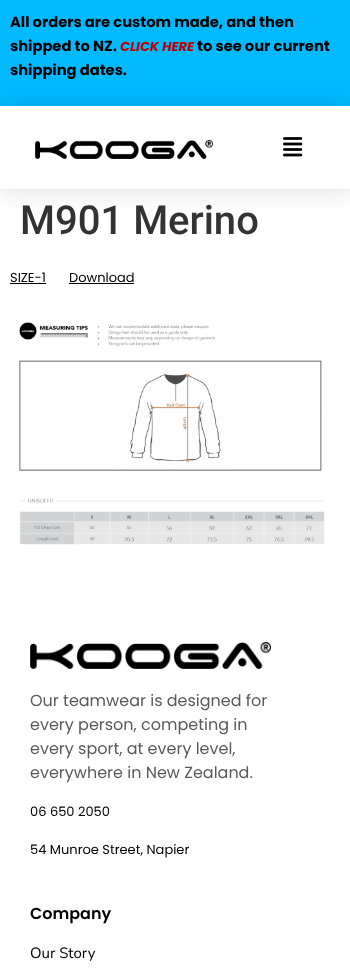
async function draw(canvas) {
  canvas.width = 350;
  canvas.height = 979;
  const ctx = canvas.getContext('2d');
  ctx.miterLimit = 4;
  ctx.fontKerning = 'normal';
  function label(s, x, y, font, color) {
    ctx.font = font;
    ctx.fillStyle = color;
    ctx.fillText(s, x, y);
  }
  function rect(x, y, w, h, color) {
    ctx.fillStyle = color;
    ctx.fillRect(x, y, w, h);
  }
  async function image(src, x, y, w, h) {
    const img = new Image();
    img.src = src;
    await img.decode();
    ctx.drawImage(img, x, y, w, h);
  }
  let path;

  rect(0, 0, 350, 979, '#fff');
  rect(0, 0, 350, 106, '#00b9ff');
  label('All orders are custom made, and then', 10, 27, 'bold 14.7px Poppins', '#000');
  label('shipped to NZ.', 10, 51, 'bold 14.7px Poppins', '#000');
  label('CLICK HERE', 120, 51, 'italic bold 13px Poppins', '#ba0000');
  label('to see our current', 197, 51, 'bold 14.7px Poppins', '#000');
  label('shipping dates.', 10, 75, 'bold 14.7px Poppins', '#000');
  ctx.save();
  path = new Path2D('M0 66H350V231H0ZM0 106H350V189H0Z');
  ctx.clip(path, 'evenodd');
  ctx.fillStyle = '#0000001c';
  ctx.filter = 'blur(12.5px)';
  ctx.beginPath();
  ctx.rect(-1, 105, 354, 87);
  ctx.fill();
  ctx.filter = 'none';
  ctx.restore();
  await image('assets/img1.png', 35, 140, 178, 19);
  await image('assets/img2.png', 283, 137, 20, 20);
  label('M901 Merino', 20, 234, '500 40px Roboto', '#333');
  label('SIZE-1', 10, 282, '13px Poppins', '#000');
  rect(10, 283, 36, 1, '#000');
  label('Download', 69, 282, '13px Poppins', '#000');
  rect(69, 283, 65, 1, '#000');
  await image('assets/img3.png', 19, 322, 306, 223);
  await image('assets/img4.png', 30, 642, 241, 27);
  label('Our teamwear is designed for', 30, 706, '16px Poppins', '#595959');
  label('every person, competing in', 30, 730, '16px Poppins', '#595959');
  label('every sport, at every level,', 30, 754, '16px Poppins', '#595959');
  label('everywhere in New Zealand.', 30, 778, '16px Poppins', '#595959');
  label('06 650 2050', 30, 816, '13px Poppins', '#000');
  label('54 Munroe Street, Napier', 30, 854, '13px Poppins', '#000');
  label('Company', 30, 919, '600 16px Poppins', '#000');
  label('Our Story', 30, 958, '15px Nunito Sans', '#000');
}

draw(document.querySelector('canvas'));
